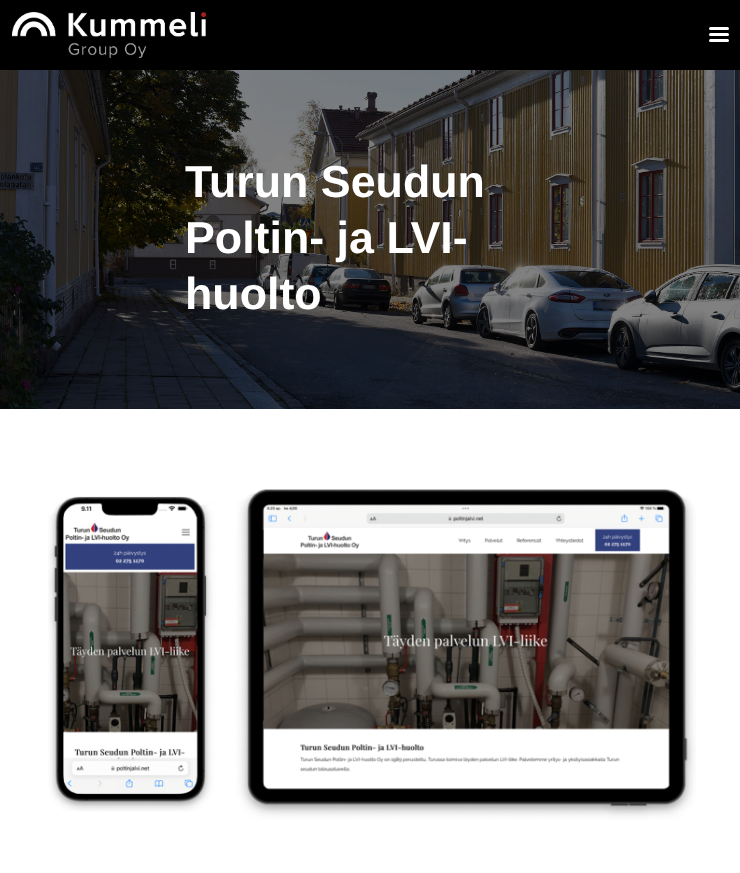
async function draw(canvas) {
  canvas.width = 740;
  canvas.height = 873;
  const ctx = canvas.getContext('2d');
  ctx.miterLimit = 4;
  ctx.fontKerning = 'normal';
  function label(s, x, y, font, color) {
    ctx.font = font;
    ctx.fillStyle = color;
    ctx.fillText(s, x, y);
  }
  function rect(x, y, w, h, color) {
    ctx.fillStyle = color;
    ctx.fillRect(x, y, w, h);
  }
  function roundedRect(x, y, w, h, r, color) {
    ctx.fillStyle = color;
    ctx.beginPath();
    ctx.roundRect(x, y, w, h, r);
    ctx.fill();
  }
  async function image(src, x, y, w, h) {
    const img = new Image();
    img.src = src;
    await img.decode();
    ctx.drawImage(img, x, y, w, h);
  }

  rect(0, 0, 740, 873, '#fff');
  rect(0, 0, 740, 70, '#000');
  await image('assets/img1.png', 12, 12, 194, 46);
  roundedRect(709, 27, 20, 3, 1.5, '#fff');
  roundedRect(709, 33, 20, 3, 1.5, '#fff');
  roundedRect(709, 39, 20, 3, 1.5, '#fff');
  await image('assets/img2.png', 0, 70, 740, 339);
  label('Turun Seudun', 185, 197, 'bold 44.75px Liberation Sans', '#fff');
  label('Poltin- ja LVI-', 185, 253, 'bold 44.75px Liberation Sans', '#fff');
  label('huolto', 185, 309, 'bold 44.75px Liberation Sans', '#fff');
  await image('assets/img3.png', 48, 489, 648, 331);
}

draw(document.querySelector('canvas'));
